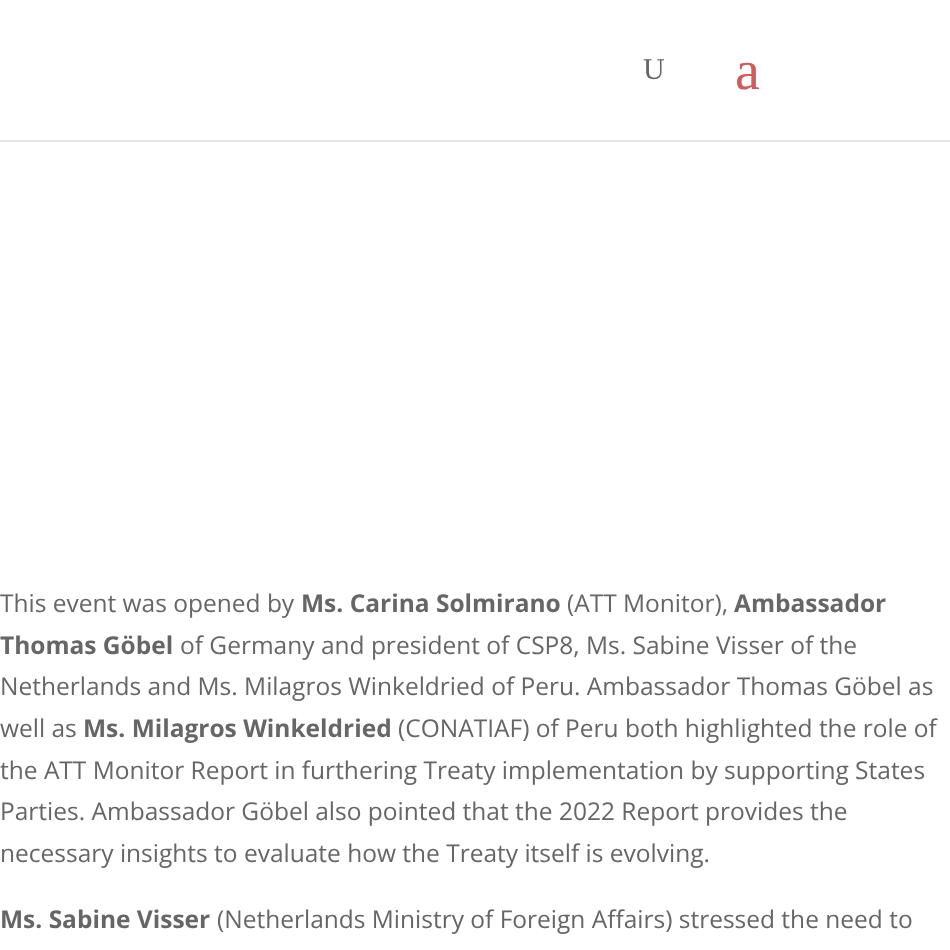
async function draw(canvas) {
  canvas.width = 950;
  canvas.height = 950;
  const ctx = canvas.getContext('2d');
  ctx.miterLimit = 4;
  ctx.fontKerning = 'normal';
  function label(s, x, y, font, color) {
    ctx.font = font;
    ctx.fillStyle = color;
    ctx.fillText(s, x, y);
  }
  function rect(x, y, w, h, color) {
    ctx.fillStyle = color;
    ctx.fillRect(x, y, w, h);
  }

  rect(0, 0, 950, 950, '#fff');
  rect(0, 140, 950, 2, '#e6e6e6');
  label('U', 643, 79, '30px Liberation Serif', '#666');
  label('a', 735, 89, '56px Liberation Serif', '#cd5c5c');
  label('This event was opened by', 0, 612, '24.5px Open Sans', '#666');
  label('Ms. Carina Solmirano', 301, 612, 'bold 24.5px Open Sans', '#666');
  label('(ATT Monitor),', 567, 612, '24.5px Open Sans', '#666');
  label('Ambassador', 734, 612, 'bold 24.5px Open Sans', '#666');
  label('Thomas Göbel', 0, 654, 'bold 24.5px Open Sans', '#666');
  label('of Germany and president of CSP8, Ms. Sabine Visser of the', 180, 654, '24.5px Open Sans', '#666');
  label('Netherlands and Ms. Milagros Winkeldried of Peru. Ambassador Thomas Göbel as', 0, 695, '24.5px Open Sans', '#666');
  label('well as', 0, 737, '24.5px Open Sans', '#666');
  label('Ms. Milagros Winkeldried', 83, 737, 'bold 24.5px Open Sans', '#666');
  label('(CONATIAF) of Peru both highlighted the role of', 398, 737, '24.5px Open Sans', '#666');
  label('the ATT Monitor Report in furthering Treaty implementation by supporting States', 0, 779, '24.5px Open Sans', '#666');
  label('Parties. Ambassador Göbel also pointed that the 2022 Report provides the', 0, 820, '24.5px Open Sans', '#666');
  label('necessary insights to evaluate how the Treaty itself is evolving.', 0, 862, '24.5px Open Sans', '#666');
  label('Ms. Sabine Visser', 0, 928, 'bold 24.5px Open Sans', '#666');
  label('(Netherlands Ministry of Foreign Affairs) stressed the need to', 217, 928, '24.5px Open Sans', '#666');
}

draw(document.querySelector('canvas'));
